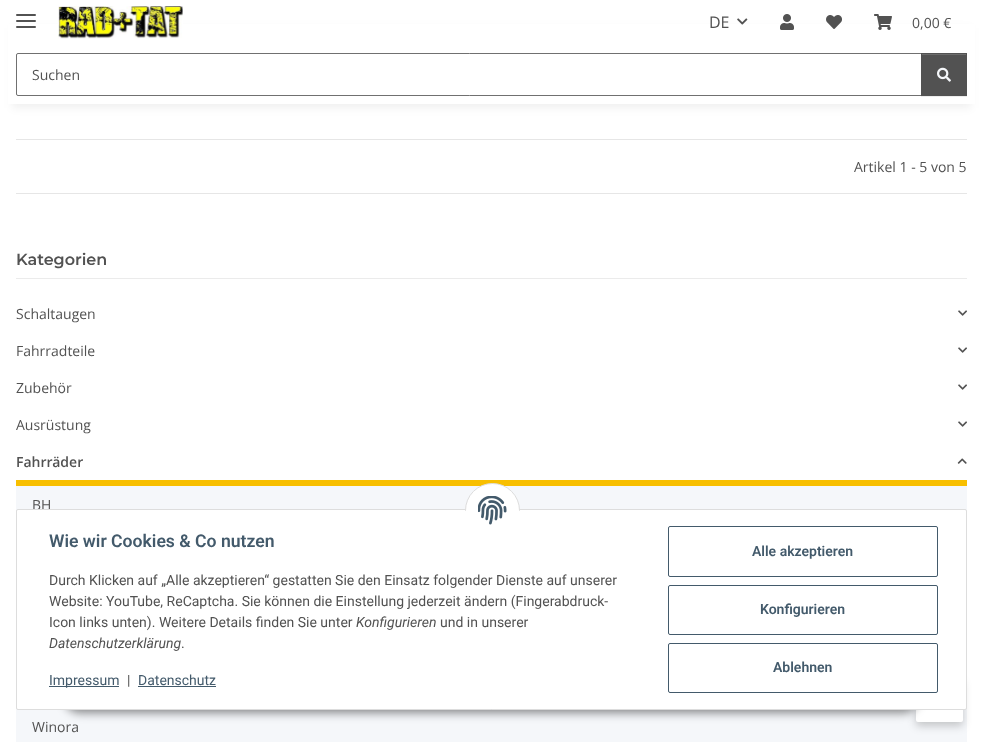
async function draw(canvas) {
  canvas.width = 983;
  canvas.height = 742;
  const ctx = canvas.getContext('2d');
  ctx.miterLimit = 4;
  ctx.fontKerning = 'normal';
  function label(s, x, y, font, color) {
    ctx.font = font;
    ctx.fillStyle = color;
    ctx.fillText(s, x, y);
  }
  function rect(x, y, w, h, color) {
    ctx.fillStyle = color;
    ctx.fillRect(x, y, w, h);
  }
  function roundedRect(x, y, w, h, r, color) {
    ctx.fillStyle = color;
    ctx.beginPath();
    ctx.roundRect(x, y, w, h, r);
    ctx.fill();
  }
  async function image(src, x, y, w, h) {
    const img = new Image();
    img.src = src;
    await img.decode();
    ctx.drawImage(img, x, y, w, h);
  }

  rect(0, 0, 983, 742, '#fff');
  ctx.fillStyle = '#0000000f';
  ctx.filter = 'blur(4.5px)';
  ctx.beginPath();
  ctx.rect(12, 28, 959, 80);
  ctx.fill();
  ctx.filter = 'none';
  rect(8, 24, 967, 80, '#fff');
  roundedRect(16, 20, 20, 2, 1, '#525252');
  roundedRect(16, 14, 20, 2, 1, '#525252');
  roundedRect(16, 26, 20, 2, 1, '#525252');
  await image('assets/img1.png', 58, 6, 125, 33);
  label('DE', 709, 28, '16px Open Sans', '#525252');
  await image('assets/img2.png', 737, 18, 11, 7);
  await image('assets/img3.png', 780, 14, 14, 16);
  await image('assets/img4.png', 826, 15, 16, 14);
  await image('assets/img5.png', 874, 14, 18, 16);
  label('0,00 €', 912, 28, '14px Open Sans', '#525252');
  ctx.beginPath();
  ctx.roundRect(16.5, 53.5, 905, 42, [1.5, 0, 0, 1.5]);
  ctx.strokeStyle = '#707070';
  ctx.stroke();
  label('Suchen', 32, 80, '14px Open Sans', '#525252');
  ctx.fillStyle = '#00000012';
  ctx.filter = 'blur(0.5px)';
  ctx.beginPath();
  ctx.rect(921, 54, 46, 43);
  ctx.fill();
  ctx.filter = 'none';
  rect(921, 53, 46, 43, '#525252');
  rect(922, 54, 44, 1, '#6c6c6c');
  await image('assets/img6.png', 937, 67, 14, 15);
  rect(16, 139, 951, 1, '#e6e6e6');
  label('Artikel 1 - 5 von 5', 854, 172, '14px Open Sans', '#525252');
  rect(16, 193, 951, 1, '#e6e6e6');
  rect(16, 278, 951, 1, '#ebebeb');
  label('Kategorien', 16, 265, '600 16px Montserrat', '#525252');
  label('Schaltaugen', 16, 319, '14px Open Sans', '#525252');
  await image('assets/img7.png', 958, 310, 9, 6);
  label('Fahrradteile', 16, 356, '14px Open Sans', '#525252');
  await image('assets/img7.png', 958, 347, 9, 6);
  label('Zubehör', 16, 393, '14px Open Sans', '#525252');
  await image('assets/img7.png', 958, 384, 9, 6);
  label('Ausrüstung', 16, 430, '14px Open Sans', '#525252');
  await image('assets/img7.png', 958, 421, 9, 6);
  rect(16, 480, 951, 6, '#f8bf00');
  label('Fahrräder', 16, 467, '600 14px Open Sans', '#525252');
  await image('assets/img8.png', 957, 458, 10, 6);
  rect(16, 486, 951, 256, '#f5f7fa');
  label('BH', 32, 510, '14px Open Sans', '#525252');
  label('Winora', 32, 732, '14px Open Sans', '#525252');
  ctx.fillStyle = '#00000033';
  ctx.filter = 'blur(4px)';
  ctx.beginPath();
  ctx.roundRect(916, 682, 47, 44, 2);
  ctx.fill();
  ctx.filter = 'none';
  roundedRect(916, 678, 47, 44, 2, '#fff');
  ctx.fillStyle = '#00000073';
  ctx.filter = 'blur(5px)';
  ctx.beginPath();
  ctx.roundRect(64, 681, 855, 32, 16);
  ctx.fill();
  ctx.filter = 'none';
  ctx.fillStyle = '#fff';
  ctx.beginPath();
  ctx.roundRect(16.5, 509.5, 950, 200, 1.5);
  ctx.fill();
  ctx.strokeStyle = '#ddd';
  ctx.stroke();
  ctx.beginPath();
  ctx.arc(492.5, 510.5, 27, 0, 2 * Math.PI);
  ctx.fill();
  ctx.stroke();
  rect(465, 511, 55, 27, '#fff');
  await image('assets/img9.png', 478, 496, 29, 29);
  label('Wie wir Cookies & Co nutzen', 49, 547, '600 17.6px Roboto', '#435a6b');
  label('Durch Klicken auf „Alle akzeptieren“ gestatten Sie den Einsatz folgender Dienste auf unserer', 49, 585, '14px Roboto', '#525252');
  label('Website: YouTube, ReCaptcha. Sie können die Einstellung jederzeit ändern (Fingerabdruck-', 49, 606, '14px Roboto', '#525252');
  label('Icon links unten). Weitere Details finden Sie unter', 49, 627, '14px Roboto', '#525252');
  label('Konfigurieren', 356, 627, 'italic 14px Roboto', '#525252');
  label('und in unserer', 440, 627, '14px Roboto', '#525252');
  label('Datenschutzerklärung', 49, 648, 'italic 14px Roboto', '#525252');
  label('.', 181, 648, '14px Roboto', '#525252');
  rect(49, 686, 70, 1, '#435a6b');
  label('Impressum', 49, 685, '14px Roboto', '#435a6b');
  label('|', 127, 685, '14px Roboto', '#525252');
  label('Datenschutz', 138, 685, '14px Roboto', '#435a6b');
  rect(138, 686, 78, 1, '#435a6b');
  ctx.beginPath();
  ctx.roundRect(668.5, 526.5, 269, 50, 1.5);
  ctx.strokeStyle = '#435a6b';
  ctx.stroke();
  label('Alle akzeptieren', 752, 556, '600 14px Roboto', '#435a6b');
  ctx.beginPath();
  ctx.roundRect(668.5, 585.5, 269, 49, 1.5);
  ctx.stroke();
  label('Konfigurieren', 760, 614, '600 14px Roboto', '#435a6b');
  ctx.beginPath();
  ctx.roundRect(668.5, 643.5, 269, 49, 1.5);
  ctx.stroke();
  label('Ablehnen', 773, 672, '600 14px Roboto', '#435a6b');
}

draw(document.querySelector('canvas'));
